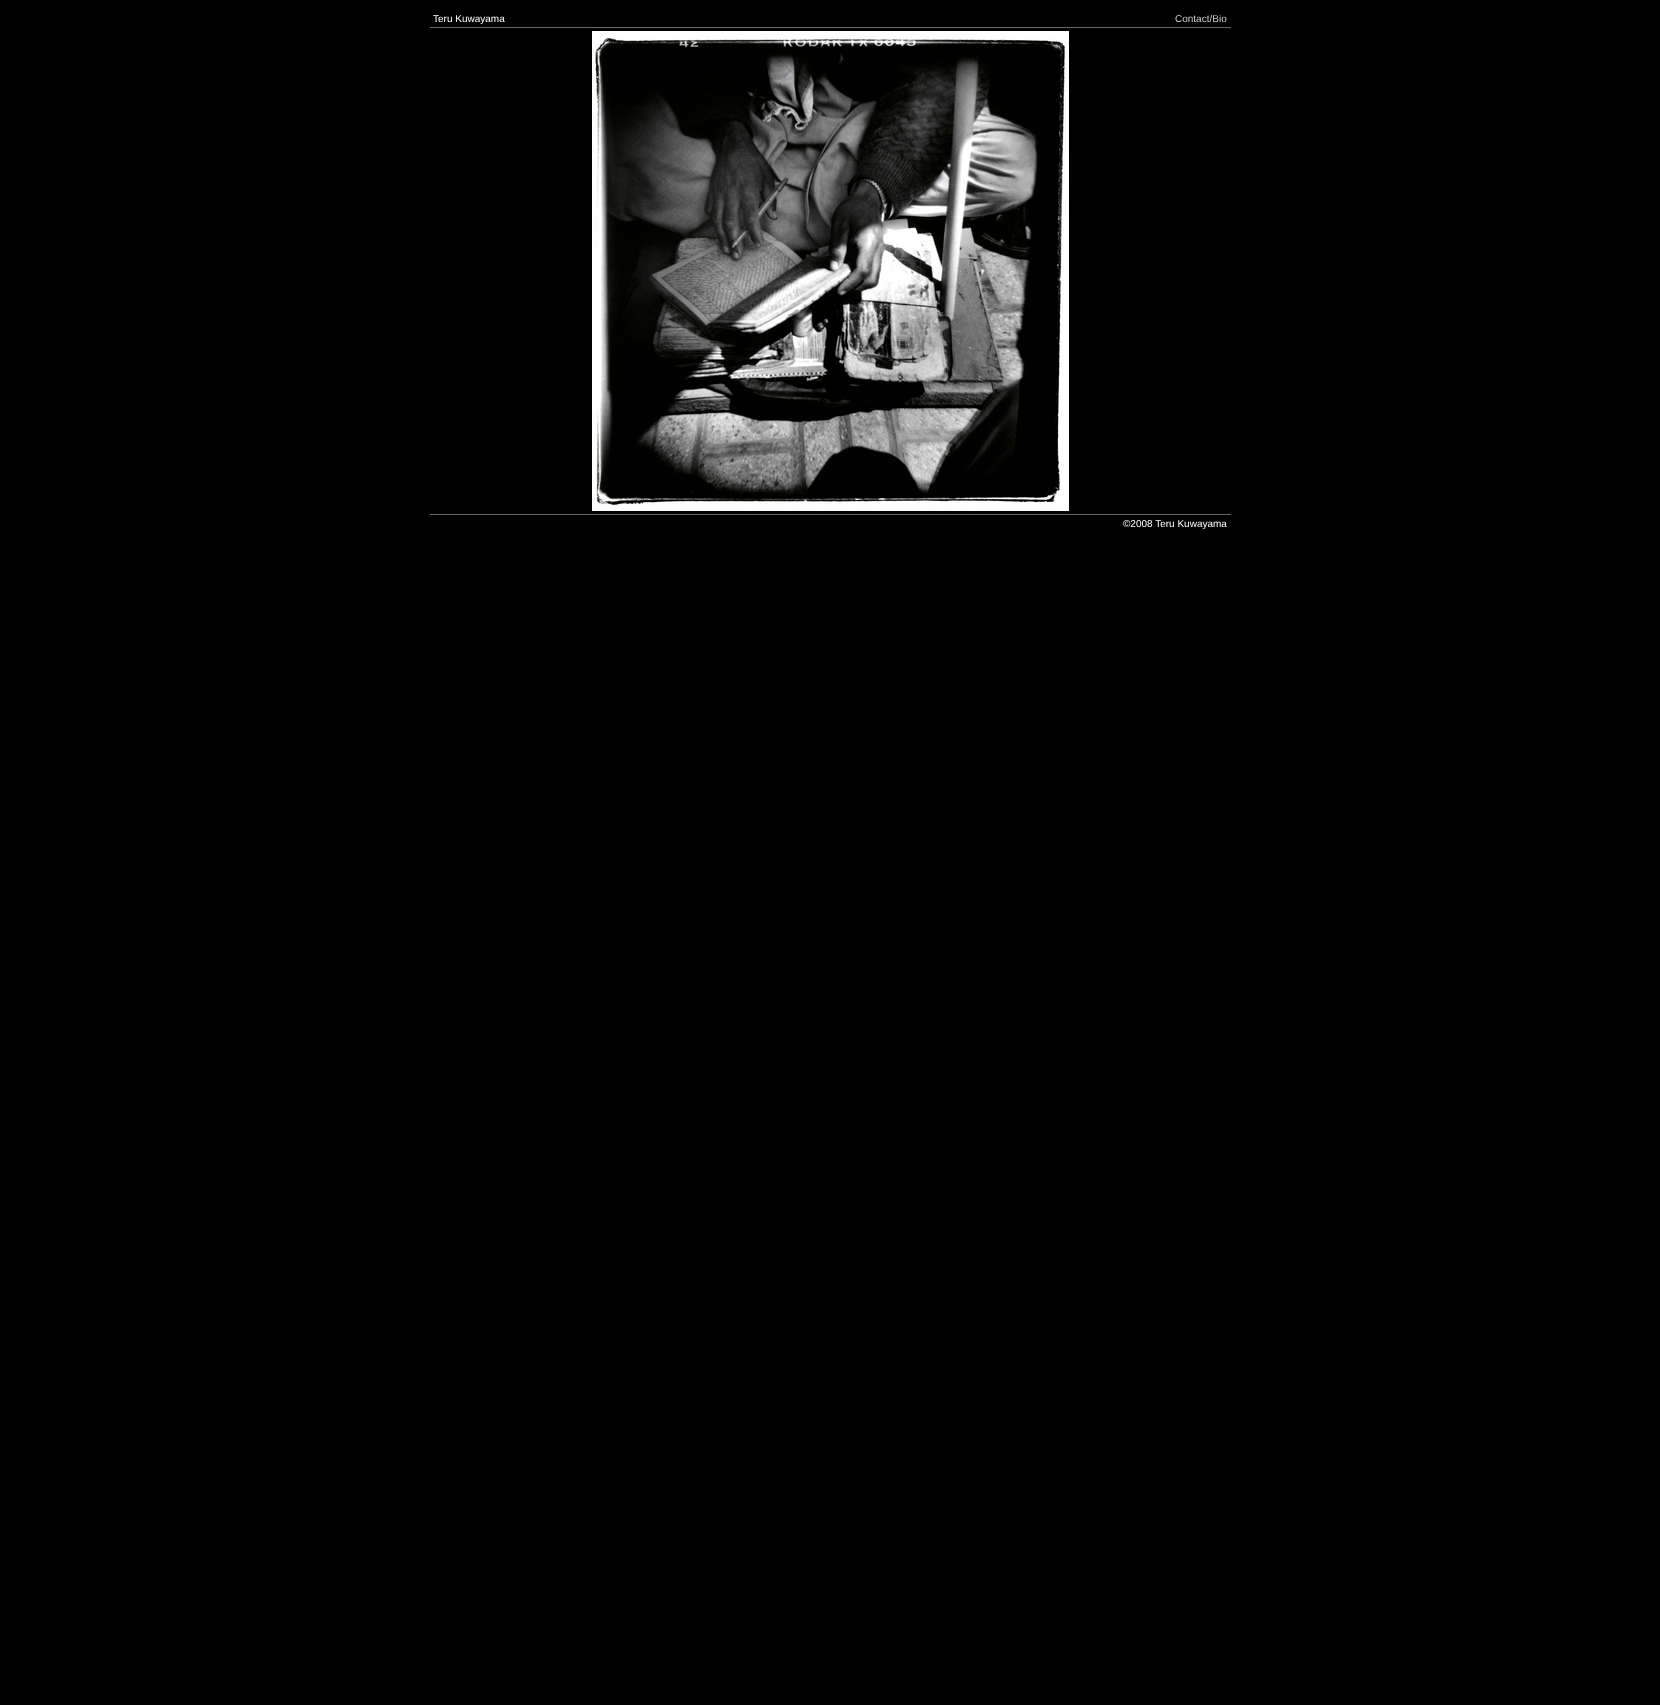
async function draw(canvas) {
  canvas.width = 1660;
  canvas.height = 1705;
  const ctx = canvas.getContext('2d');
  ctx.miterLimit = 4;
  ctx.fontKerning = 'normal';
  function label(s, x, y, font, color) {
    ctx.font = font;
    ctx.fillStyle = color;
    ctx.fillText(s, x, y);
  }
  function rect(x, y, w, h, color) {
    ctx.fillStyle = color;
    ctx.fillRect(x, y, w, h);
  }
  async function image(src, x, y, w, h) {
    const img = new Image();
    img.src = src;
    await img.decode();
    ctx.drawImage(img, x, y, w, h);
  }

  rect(0, 0, 1660, 1705, '#000');
  label('Teru Kuwayama', 433, 22, '10px Liberation Sans', '#fff');
  rect(430, 27, 801, 1, '#666');
  label('Contact/Bio', 1175, 22, '10px Liberation Sans', '#ccc');
  await image('assets/img1.png', 592, 31, 477, 480);
  rect(430, 514, 801, 1, '#666');
  label('©2008 Teru Kuwayama', 1123, 527, '10px Liberation Sans', '#fff');
}

draw(document.querySelector('canvas'));
